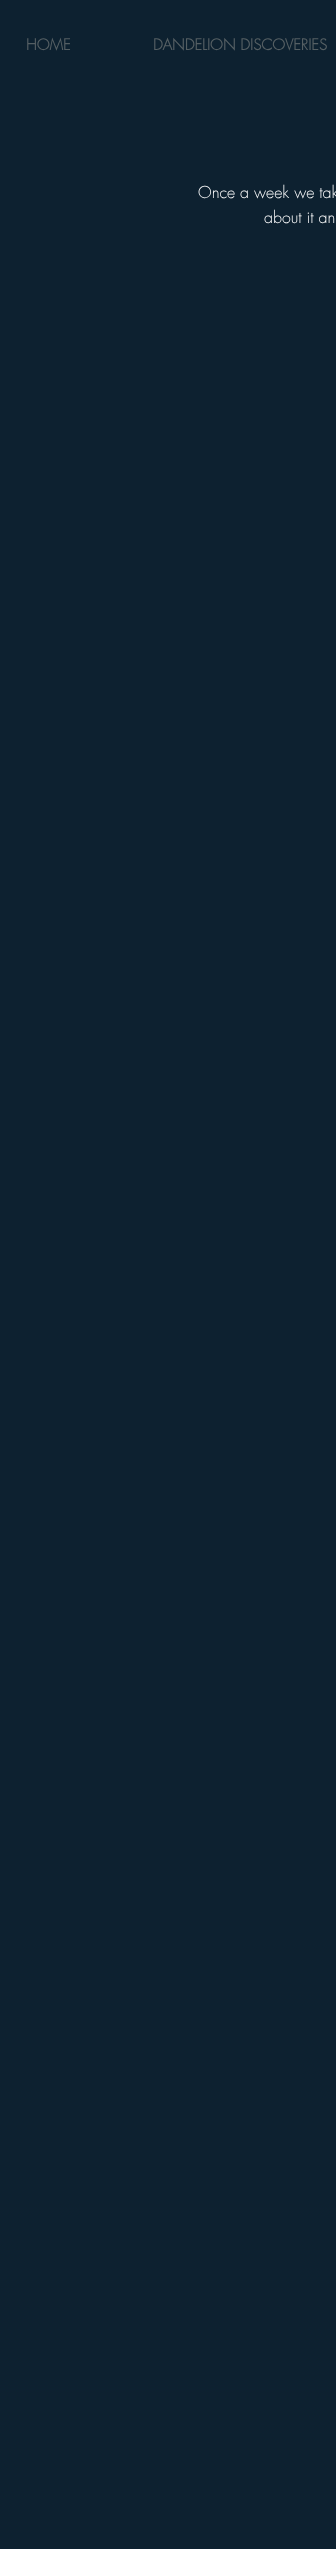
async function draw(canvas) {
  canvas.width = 336;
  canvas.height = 2549;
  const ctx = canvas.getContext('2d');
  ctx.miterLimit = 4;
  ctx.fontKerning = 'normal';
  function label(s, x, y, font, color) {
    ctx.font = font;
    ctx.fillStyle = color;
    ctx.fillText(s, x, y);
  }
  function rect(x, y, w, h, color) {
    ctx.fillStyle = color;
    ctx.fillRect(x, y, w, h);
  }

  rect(0, 0, 336, 2549, '#0d2130');
  label('HOME', 26, 50, 'bold 15px futura', '#555f63');
  label('DANDELION DISCOVERIES', 153, 50, 'bold 15px futura', '#555f63');
  label('Once a week we tak', 198, 198, '300 16px futura', '#fff');
  label('about it an', 264, 223, '300 16px futura', '#fff');
}

draw(document.querySelector('canvas'));
